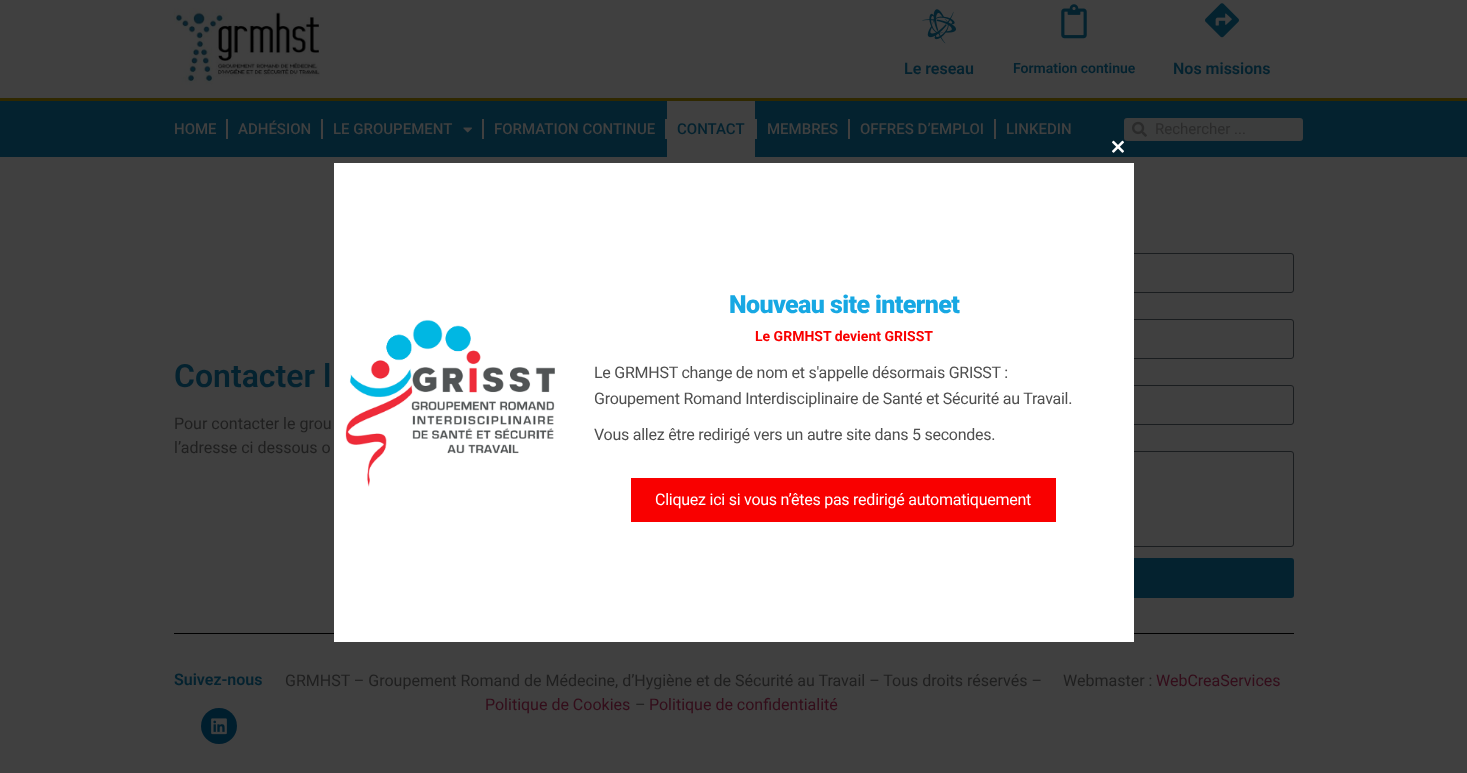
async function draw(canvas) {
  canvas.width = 1467;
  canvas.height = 773;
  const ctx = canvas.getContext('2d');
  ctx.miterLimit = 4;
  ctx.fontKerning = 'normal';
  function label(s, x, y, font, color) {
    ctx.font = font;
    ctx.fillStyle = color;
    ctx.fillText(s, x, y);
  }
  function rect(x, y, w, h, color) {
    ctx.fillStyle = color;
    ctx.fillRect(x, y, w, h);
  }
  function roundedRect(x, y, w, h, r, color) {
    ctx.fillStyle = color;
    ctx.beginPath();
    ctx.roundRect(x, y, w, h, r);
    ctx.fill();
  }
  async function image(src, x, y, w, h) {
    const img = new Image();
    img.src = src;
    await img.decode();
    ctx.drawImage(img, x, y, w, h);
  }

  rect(0, 0, 1467, 773, '#404040');
  await image('assets/img1.png', 173, 8, 147, 77);
  await image('assets/img2.png', 922, 9, 34, 35);
  label('Le reseau', 904, 74, '600 16px Roboto', '#04222f');
  await image('assets/img3.png', 1061, 4, 26, 35);
  label('Formation continue', 1013, 73, '600 14px Roboto', '#04222f');
  await image('assets/img4.png', 1205, 3, 34, 35);
  label('Nos missions', 1173, 74, '600 16px Roboto', '#04222f');
  rect(0, 101, 1467, 56, '#04222f');
  rect(0, 98, 1467, 3, '#302800');
  label('HOME', 174, 134, '500 15px Roboto', '#404040');
  rect(226, 119, 2, 20, '#404040');
  label('ADHÉSION', 238, 134, '500 15px Roboto', '#404040');
  rect(321, 119, 2, 20, '#404040');
  label('LE GROUPEMENT', 333, 134, '500 15px Roboto', '#404040');
  await image('assets/img5.png', 463, 127, 9, 6);
  rect(482, 119, 2, 20, '#404040');
  label('FORMATION CONTINUE', 494, 134, '500 15px Roboto', '#404040');
  rect(665, 119, 2, 20, '#404040');
  rect(667, 101, 88, 56, '#404040');
  label('CONTACT', 677, 134, '500 15px Roboto', '#04222f');
  rect(755, 119, 2, 20, '#404040');
  label('MEMBRES', 767, 134, '500 15px Roboto', '#404040');
  rect(848, 119, 2, 20, '#404040');
  label('OFFRES D’EMPLOI', 860, 134, '500 15px Roboto', '#404040');
  rect(994, 119, 2, 20, '#404040');
  label('LINKEDIN', 1006, 134, '500 15px Roboto', '#404040');
  roundedRect(1124, 118, 179, 23, 3, '#3c3d3d');
  await image('assets/img6.png', 1132, 121, 15, 16);
  label('Rechercher ...', 1155, 134, '15px Roboto', '#2b2b2b');
  label('Contacter l', 174, 387, '600 32px Roboto', '#04222f');
  label('Pour contacter le grou', 174, 429, '16px Roboto', '#1f1f1f');
  label('l’adresse ci dessous o', 174, 453, '16px Roboto', '#1f1f1f');
  ctx.beginPath();
  ctx.roundRect(744.5, 253.5, 549, 39, 2.5);
  ctx.strokeStyle = '#1a1d1f';
  ctx.stroke();
  ctx.beginPath();
  ctx.roundRect(744.5, 319.5, 549, 39, 2.5);
  ctx.stroke();
  ctx.beginPath();
  ctx.roundRect(744.5, 385.5, 549, 39, 2.5);
  ctx.stroke();
  ctx.beginPath();
  ctx.roundRect(744.5, 451.5, 549, 95, 2.5);
  ctx.stroke();
  roundedRect(744, 558, 550, 40, 3, '#04222f');
  rect(174, 633, 1120, 1, '#000');
  rect(334, 163, 800, 479, '#fff');
  await image('assets/img7.png', 1112, 140, 12, 13);
  await image('assets/img8.png', 345, 319, 210, 168);
  ctx.letterSpacing = '-0.6px';
  label('Nouveau site internet', 729, 313, '900 25px Roboto', '#17a8e3');
  ctx.letterSpacing = '0px';
  label('Le GRMHST devient GRISST', 755, 341, 'bold 14px Roboto', '#f90000');
  ctx.letterSpacing = '-0.25px';
  label('Le GRMHST change de nom et s\'appelle désormais GRISST :', 594, 378, '16px Roboto', '#4f4f4f');
  label('Groupement Romand Interdisciplinaire de Santé et Sécurité au Travail.', 594, 404, '16px Roboto', '#4f4f4f');
  label('Vous allez être redirigé vers un autre site dans 5 secondes.', 594, 440, '16px Roboto', '#4f4f4f');
  rect(631, 478, 425, 44, '#f90000');
  label('Cliquez ici si vous n’êtes pas redirigé automatiquement', 655, 505, '16px Roboto', '#fff');
  ctx.letterSpacing = '0px';
  label('Suivez-nous', 174, 685, '600 16px Roboto', '#04222f');
  ctx.fillStyle = '#001e2d';
  ctx.beginPath();
  ctx.arc(219, 726, 18, 0, 2 * Math.PI);
  ctx.fill();
  await image('assets/img9.png', 211, 718, 16, 17);
  label('GRMHST – Groupement Romand de Médecine, d’Hygiène et de Sécurité au Travail – Tous droits réservés –', 285, 686, '16px Roboto', '#1f1f1f');
  label('Politique de Cookies', 485, 710, '16px Roboto', '#330d1a');
  label('–', 635, 710, '16px Roboto', '#1f1f1f');
  label('Politique de confidentialité', 649, 710, '16px Roboto', '#330d1a');
  label('Webmaster :', 1063, 686, '16px Roboto', '#1f1f1f');
  label('WebCreaServices', 1156, 686, '16px Roboto', '#330d1a');
}

draw(document.querySelector('canvas'));
